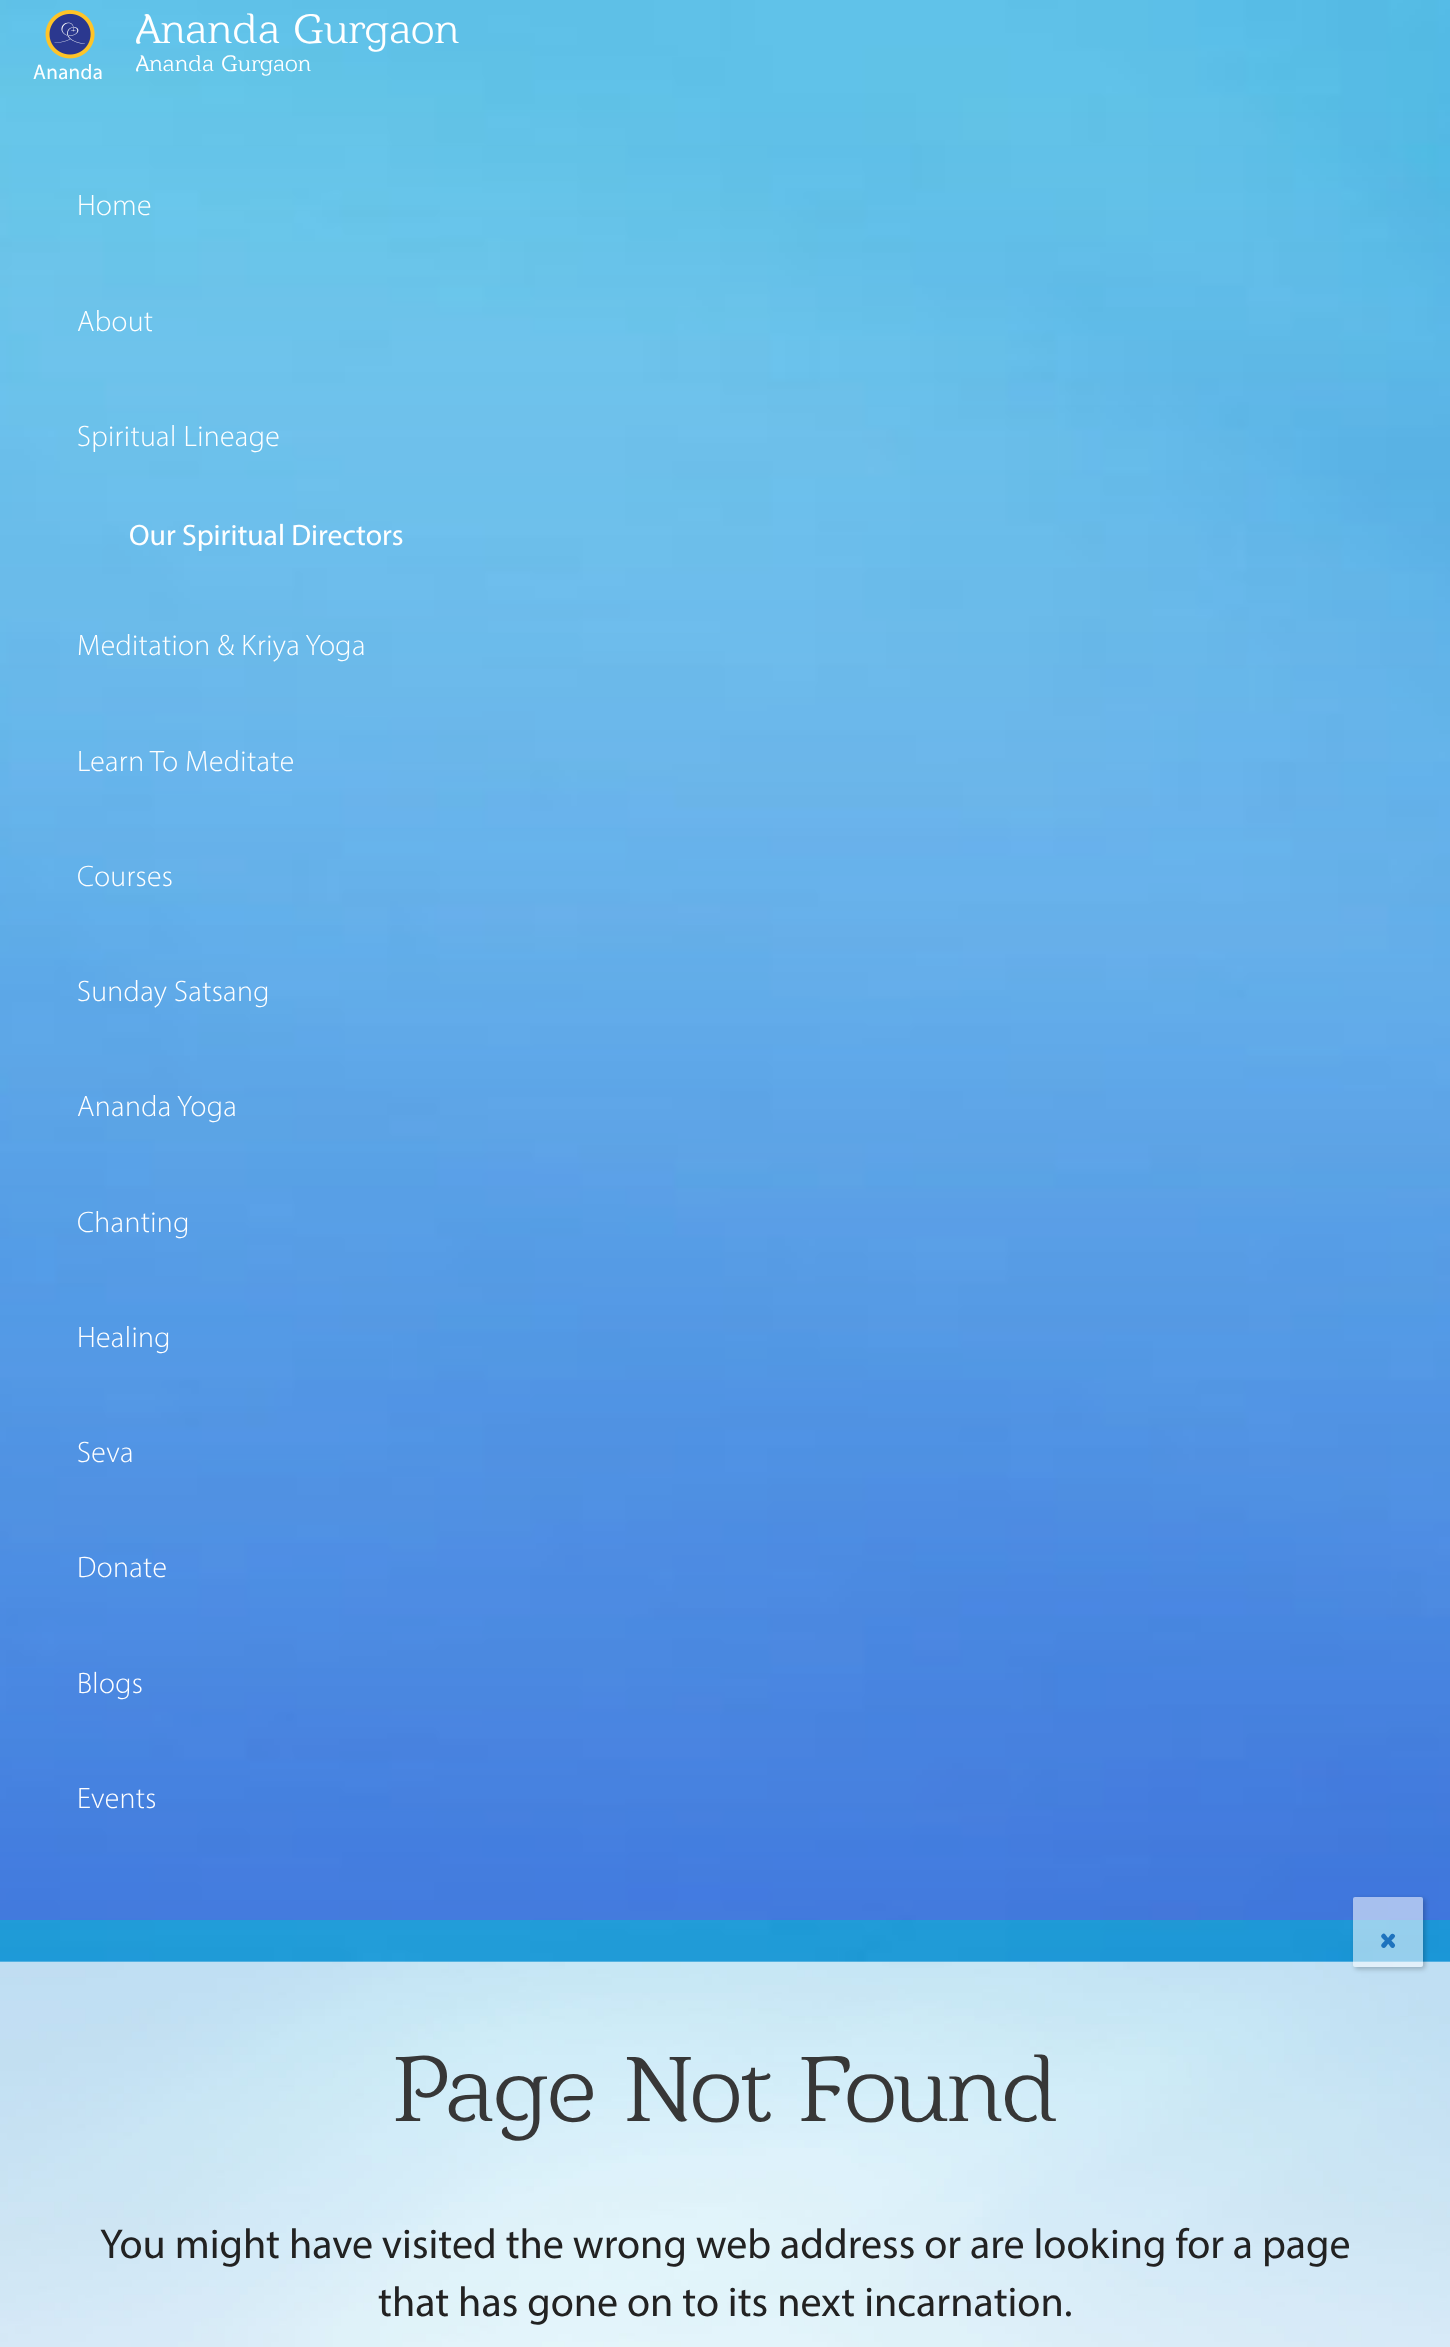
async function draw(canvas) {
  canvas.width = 1450;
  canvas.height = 2347;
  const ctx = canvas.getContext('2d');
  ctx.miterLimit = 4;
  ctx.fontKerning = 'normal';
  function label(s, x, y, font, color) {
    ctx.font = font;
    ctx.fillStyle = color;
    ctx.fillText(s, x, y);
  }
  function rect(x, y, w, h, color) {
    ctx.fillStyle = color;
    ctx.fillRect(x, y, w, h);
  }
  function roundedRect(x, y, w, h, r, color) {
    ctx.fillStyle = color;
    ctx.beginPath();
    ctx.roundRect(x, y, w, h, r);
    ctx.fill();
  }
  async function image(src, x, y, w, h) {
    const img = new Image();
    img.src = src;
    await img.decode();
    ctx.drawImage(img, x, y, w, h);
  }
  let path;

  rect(0, 0, 1450, 2347, '#fff');
  await image('assets/img3.png', 0, 1961, 1450, 386);
  await image('assets/img1.png', 0, 0, 1450, 1962);
  await image('assets/img2.png', 45, 10, 50, 49);
  ctx.letterSpacing = '0.35px';
  label('Ananda', 33, 79, '21px Myriad', '#fff');
  ctx.letterSpacing = '0px';
  label('Ananda Gurgaon', 136, 43, '42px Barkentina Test', '#fff');
  label('Ananda Gurgaon', 136, 71, '22.75px Barkentina Test', '#fff');
  ctx.letterSpacing = '0.35px';
  label('Home', 77, 215, '300 29.75px Myriad', '#fff');
  label('About', 77, 331, '300 29.75px Myriad', '#fff');
  label('Spiritual Lineage', 77, 446, '300 29.75px Myriad', '#fff');
  ctx.letterSpacing = '0px';
  label('Our Spiritual Directors', 129, 545, '29.75px Myriad', '#fff');
  ctx.letterSpacing = '0.35px';
  label('Meditation & Kriya Yoga', 77, 655, '300 29.75px Myriad', '#fff');
  label('Learn To Meditate', 77, 771, '300 29.75px Myriad', '#fff');
  label('Courses', 77, 886, '300 29.75px Myriad', '#fff');
  label('Sunday Satsang', 77, 1001, '300 29.75px Myriad', '#fff');
  label('Ananda Yoga', 77, 1116, '300 29.75px Myriad', '#fff');
  label('Chanting', 77, 1232, '300 29.75px Myriad', '#fff');
  label('Healing', 77, 1347, '300 29.75px Myriad', '#fff');
  label('Seva', 77, 1462, '300 29.75px Myriad', '#fff');
  label('Donate', 77, 1577, '300 29.75px Myriad', '#fff');
  label('Blogs', 77, 1693, '300 29.75px Myriad', '#fff');
  label('Events', 77, 1808, '300 29.75px Myriad', '#fff');
  ctx.letterSpacing = '-2.1px';
  label('Page Not Found', 394, 2121, '94.5px Barkentina Test', '#373737');
  ctx.letterSpacing = '0px';
  label('You might have visited the wrong web address or are looking for a page', 100, 2258, '42px Myriad', '#222');
  label('that has gone on to its next incarnation.', 378, 2316, '42px Myriad', '#222');
  ctx.save();
  path = new Path2D('M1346 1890H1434V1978H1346ZM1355 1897H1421C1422 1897 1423 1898 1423 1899V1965C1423 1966 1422 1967 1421 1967H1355C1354 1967 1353 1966 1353 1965V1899C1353 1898 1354 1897 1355 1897Z');
  ctx.clip(path, 'evenodd');
  ctx.fillStyle = '#0202023b';
  ctx.filter = 'blur(2.5px)';
  ctx.beginPath();
  ctx.roundRect(1355, 1899, 70, 70, 2);
  ctx.fill();
  ctx.filter = 'none';
  ctx.restore();
  roundedRect(1353, 1897, 70, 70, 2, '#ffffff8a');
  label('X', 1380, 1948, '21px Coiny', '#1e73be');
}

draw(document.querySelector('canvas'));
